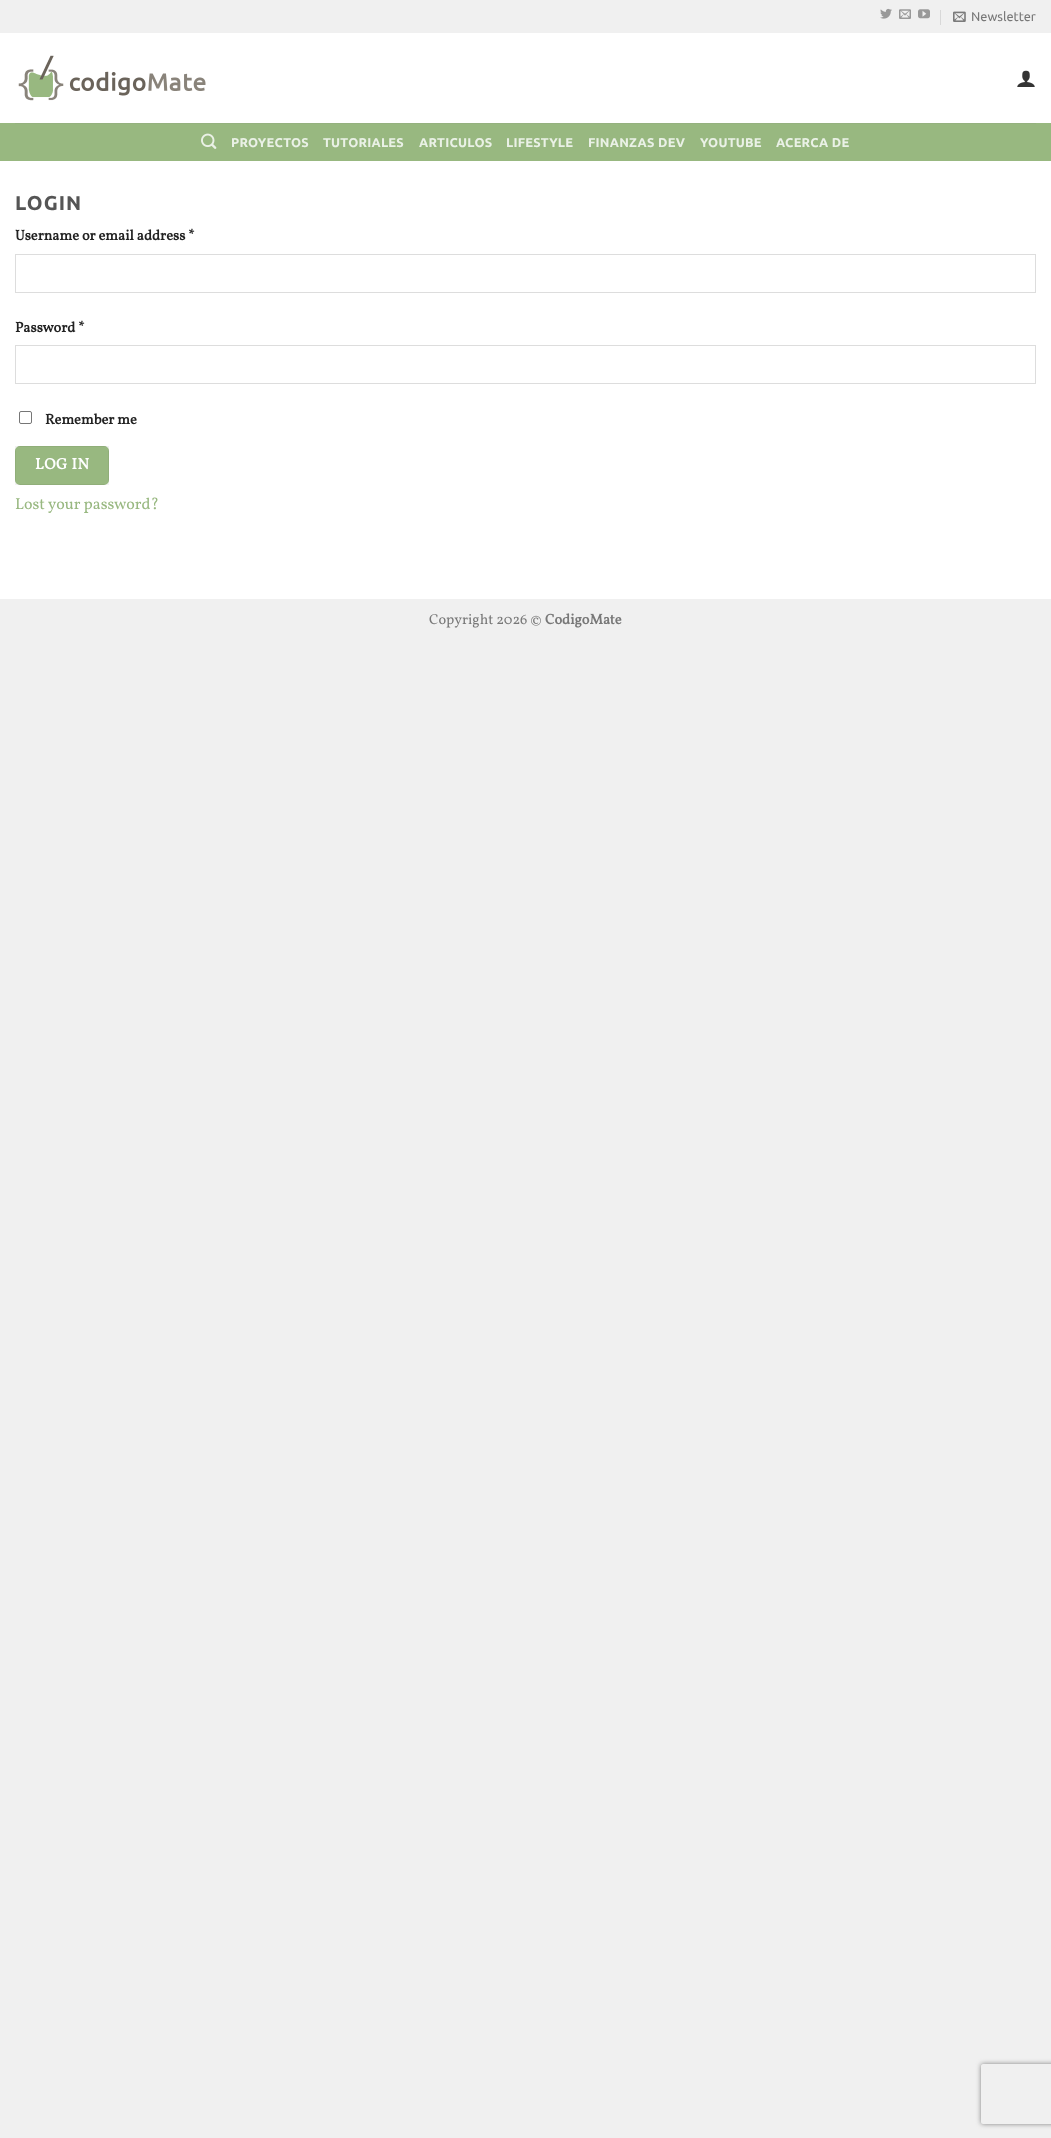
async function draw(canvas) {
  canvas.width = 1051;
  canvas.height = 2138;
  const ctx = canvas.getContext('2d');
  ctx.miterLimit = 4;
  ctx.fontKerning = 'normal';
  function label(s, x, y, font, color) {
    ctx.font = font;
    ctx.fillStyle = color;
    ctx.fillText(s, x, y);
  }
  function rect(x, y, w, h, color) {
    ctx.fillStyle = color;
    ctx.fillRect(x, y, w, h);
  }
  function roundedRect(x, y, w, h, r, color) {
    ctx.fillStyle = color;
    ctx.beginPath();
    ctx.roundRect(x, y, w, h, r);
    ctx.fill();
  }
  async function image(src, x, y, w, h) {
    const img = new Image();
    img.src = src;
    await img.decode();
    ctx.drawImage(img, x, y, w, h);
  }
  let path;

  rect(0, 0, 1051, 2138, '#f0f0f0');
  rect(0, 33, 1051, 566, '#fff');
  await image('assets/img1.png', 880, 8, 12, 11);
  await image('assets/img2.png', 899, 9, 12, 10);
  await image('assets/img3.png', 918, 9, 12, 10);
  rect(940, 10, 1, 15, '#d8d8d8');
  await image('assets/img4.png', 953, 11, 13, 11);
  label('Newsletter', 971, 21, '12.75px Ubuntu', '#787878');
  await image('assets/img5.png', 18, 55, 188, 46);
  await image('assets/img6.png', 1017, 70, 18, 17);
  rect(0, 123, 1051, 38, '#98b880');
  rect(15, 123, 1021, 1, '#95b17f');
  await image('assets/img7.png', 201, 133, 16, 16);
  ctx.letterSpacing = '0.25px';
  label('PROYECTOS', 231, 147, 'bold 12.75px Ubuntu', '#eaf1e6');
  label('TUTORIALES', 323, 147, 'bold 12.75px Ubuntu', '#eaf1e6');
  label('ARTICULOS', 419, 147, 'bold 12.75px Ubuntu', '#eaf1e6');
  label('LIFESTYLE', 506, 147, 'bold 12.75px Ubuntu', '#eaf1e6');
  label('FINANZAS DEV', 588, 147, 'bold 12.75px Ubuntu', '#eaf1e6');
  label('YOUTUBE', 700, 147, 'bold 12.75px Ubuntu', '#eaf1e6');
  label('ACERCA DE', 776, 147, 'bold 12.75px Ubuntu', '#eaf1e6');
  ctx.letterSpacing = '1px';
  label('LOGIN', 15, 210, 'bold 20px Ubuntu', '#555');
  ctx.letterSpacing = '0px';
  label('Username or email address *', 15, 240, 'bold 14.4px Vollkorn', '#222');
  ctx.strokeStyle = '#ddd';
  ctx.strokeRect(15.5, 254.5, 1020, 38);
  label('Password *', 15, 332, 'bold 14.4px Vollkorn', '#222');
  ctx.strokeRect(15.5, 345.5, 1020, 38);
  ctx.beginPath();
  ctx.roundRect(19.5, 411.5, 12, 12, 1.5);
  ctx.strokeStyle = '#767676';
  ctx.stroke();
  label('Remember me', 45, 424, 'bold 14.4px Vollkorn', '#222');
  roundedRect(15, 446, 94, 39, 5, '#98b880');
  ctx.strokeStyle = '#0000000d';
  ctx.strokeRect(15.5, 446.5, 93, 38);
  ctx.letterSpacing = '0.5px';
  label('LOG IN', 35, 469, 'bold 15.5px Vollkorn', '#fff');
  ctx.letterSpacing = '0px';
  label('Lost your password?', 15, 509, '16px Vollkorn', '#98b880');
  label('Copyright 2026 ©', 429, 624, '14.4px Vollkorn', '#787878');
  label('CodigoMate', 545, 624, 'bold 14.4px Vollkorn', '#787878');
  ctx.save();
  path = new Path2D('M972 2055H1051V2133H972ZM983 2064H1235C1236 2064 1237 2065 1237 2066V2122C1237 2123 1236 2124 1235 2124H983C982 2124 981 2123 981 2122V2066C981 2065 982 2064 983 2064Z');
  ctx.clip(path, 'evenodd');
  ctx.fillStyle = '#808080';
  ctx.filter = 'blur(2.5px)';
  ctx.beginPath();
  ctx.roundRect(981, 2064, 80, 60, 2);
  ctx.fill();
  ctx.filter = 'none';
  ctx.restore();
}

draw(document.querySelector('canvas'));
